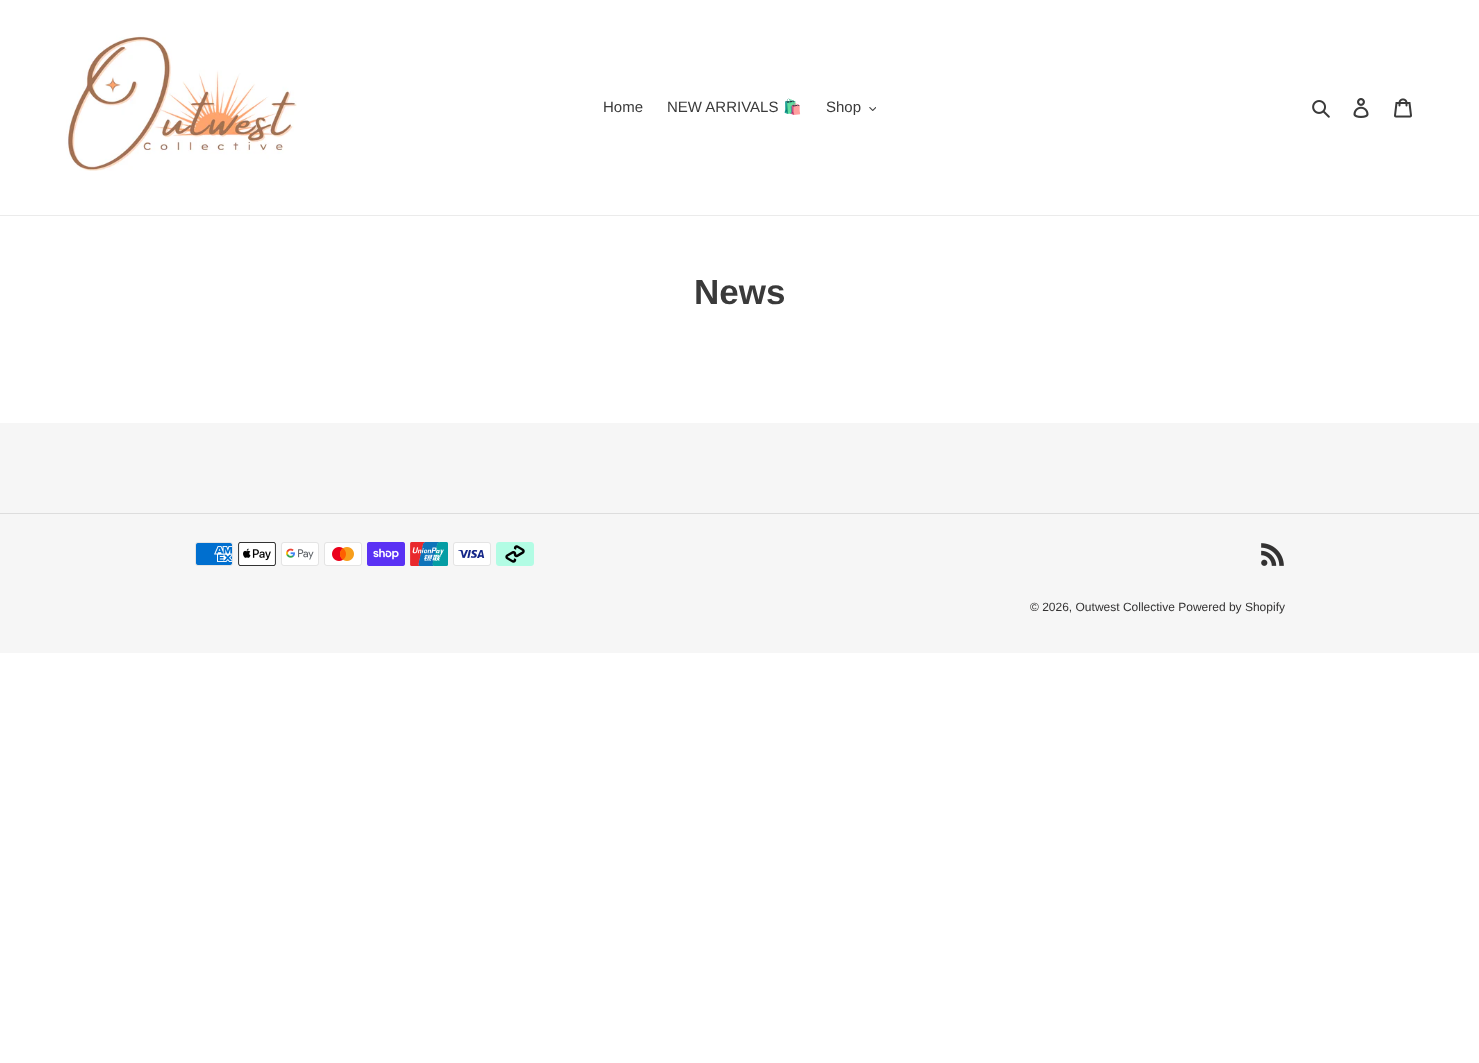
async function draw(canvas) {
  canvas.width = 1479;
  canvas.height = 1063;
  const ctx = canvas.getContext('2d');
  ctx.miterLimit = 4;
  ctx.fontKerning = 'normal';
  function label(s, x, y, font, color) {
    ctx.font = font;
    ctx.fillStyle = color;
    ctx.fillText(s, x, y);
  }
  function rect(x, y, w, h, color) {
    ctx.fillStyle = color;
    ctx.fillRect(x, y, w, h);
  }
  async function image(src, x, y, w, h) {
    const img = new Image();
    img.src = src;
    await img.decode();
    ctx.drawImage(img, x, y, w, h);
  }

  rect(0, 0, 1479, 1063, '#fff');
  rect(0, 215, 1479, 1, '#ebebeb');
  await image('assets/img1.png', 66, 35, 231, 136);
  label('Home', 603, 112, '15px Liberation Sans', '#3a3a3a');
  label('NEW ARRIVALS', 667, 112, '15px Liberation Sans', '#3a3a3a');
  label('🛍️', 783, 112, '15px Noto Color Emoji', '#3a3a3a');
  label('Shop', 826, 112, '15px Liberation Sans', '#3a3a3a');
  await image('assets/img2.png', 869, 107, 7, 4);
  await image('assets/img3.png', 1312, 100, 18, 18);
  await image('assets/img4.png', 1353, 98, 16, 20);
  await image('assets/img5.png', 1394, 98, 18, 20);
  label('News', 694, 304, 'bold 35px Liberation Sans', '#3a3a3a');
  rect(0, 423, 1479, 230, '#f6f6f6');
  rect(0, 513, 1479, 1, '#ddd');
  await image('assets/img6.png', 195, 542, 38, 24);
  await image('assets/img7.png', 238, 542, 38, 24);
  await image('assets/img8.png', 281, 542, 38, 24);
  await image('assets/img9.png', 324, 542, 38, 24);
  await image('assets/img10.png', 367, 542, 38, 24);
  await image('assets/img11.png', 410, 542, 38, 24);
  await image('assets/img12.png', 453, 542, 38, 24);
  await image('assets/img13.png', 496, 542, 38, 24);
  await image('assets/img14.png', 1261, 543, 23, 23);
  label('© 2026, Outwest Collective Powered by Shopify', 1030, 611, '12px Liberation Sans', '#333232');
}

draw(document.querySelector('canvas'));
